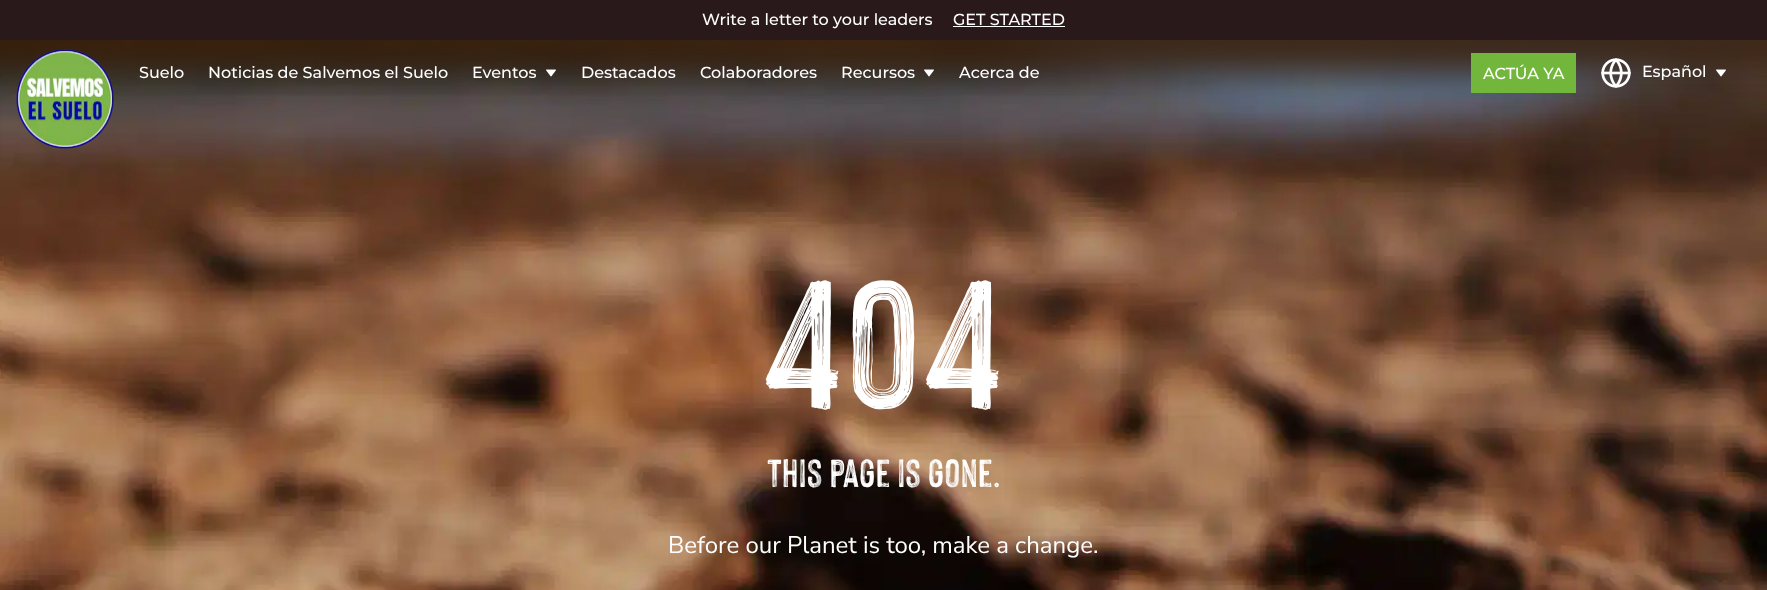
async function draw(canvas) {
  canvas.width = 1767;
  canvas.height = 590;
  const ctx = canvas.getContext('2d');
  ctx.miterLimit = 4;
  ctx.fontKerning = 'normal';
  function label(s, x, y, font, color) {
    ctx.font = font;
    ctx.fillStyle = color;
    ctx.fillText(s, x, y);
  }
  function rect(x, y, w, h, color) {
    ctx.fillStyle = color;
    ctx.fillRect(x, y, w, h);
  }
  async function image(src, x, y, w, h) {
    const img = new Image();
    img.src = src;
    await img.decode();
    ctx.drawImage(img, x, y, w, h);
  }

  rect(0, 0, 1767, 590, '#2a191a');
  label('Write a letter to your leaders', 702, 25, '500 16px Montserrat', '#fff');
  label('GET STARTED', 953, 25, '500 16px Montserrat', '#fff');
  rect(953, 26, 112, 1, '#fff');
  await image('assets/img6.png', 0, 40, 1767, 550);
  await image('assets/img1.png', 16, 49, 98, 100);
  label('Suelo', 139, 78, '500 16px Montserrat', '#fff');
  label('Noticias de Salvemos el Suelo', 208, 78, '500 16px Montserrat', '#fff');
  label('Eventos', 472, 78, '500 16px Montserrat', '#fff');
  await image('assets/img2.png', 546, 69, 10, 8);
  label('Destacados', 581, 78, '500 16px Montserrat', '#fff');
  label('Colaboradores', 700, 78, '500 16px Montserrat', '#fff');
  label('Recursos', 841, 78, '500 16px Montserrat', '#fff');
  await image('assets/img3.png', 924, 69, 10, 8);
  label('Acerca de', 959, 78, '500 16px Montserrat', '#fff');
  rect(1471, 53, 105, 40, '#72b73b');
  label('ACTÚA YA', 1483, 79, '500 16px Montserrat', '#fff');
  await image('assets/img4.png', 1601, 58, 30, 30);
  label('Español', 1642, 77, '500 16px Montserrat', '#fff');
  await image('assets/img5.png', 1716, 69, 10, 8);
  label('404', 761, 408, 'bold 199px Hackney', '#fff');
  label('This page is gone.', 767, 487, 'bold 43px Hackney', '#fff');
  label('Before our Planet is too, make a change.', 668, 553, '24px Nunito Sans', '#fff');
}

draw(document.querySelector('canvas'));
